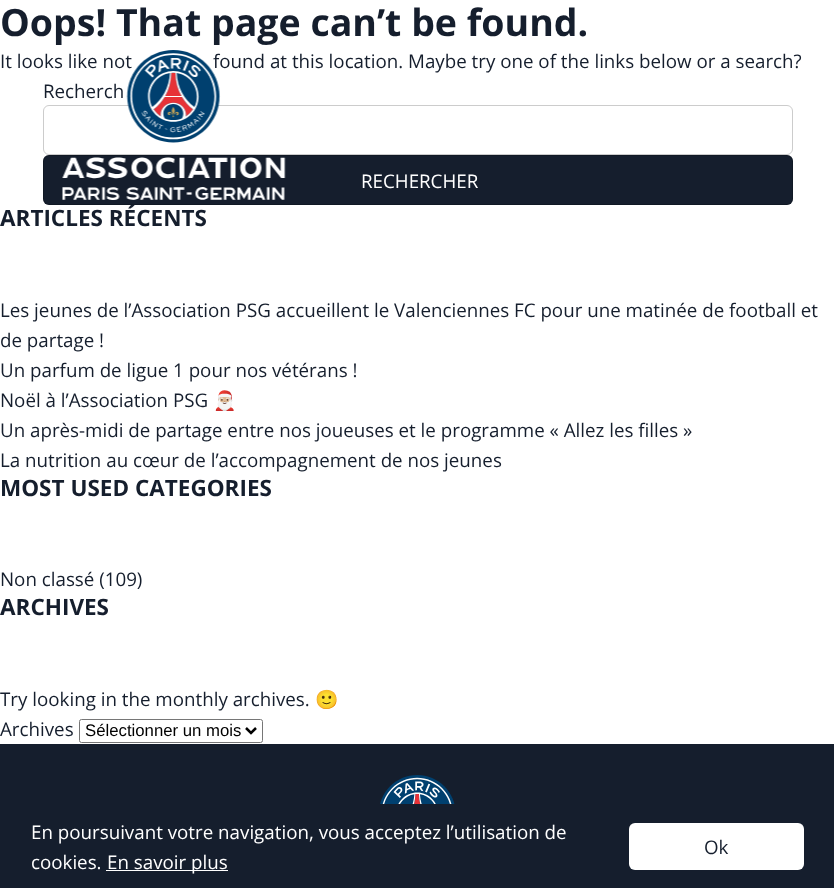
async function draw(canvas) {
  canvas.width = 834;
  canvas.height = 888;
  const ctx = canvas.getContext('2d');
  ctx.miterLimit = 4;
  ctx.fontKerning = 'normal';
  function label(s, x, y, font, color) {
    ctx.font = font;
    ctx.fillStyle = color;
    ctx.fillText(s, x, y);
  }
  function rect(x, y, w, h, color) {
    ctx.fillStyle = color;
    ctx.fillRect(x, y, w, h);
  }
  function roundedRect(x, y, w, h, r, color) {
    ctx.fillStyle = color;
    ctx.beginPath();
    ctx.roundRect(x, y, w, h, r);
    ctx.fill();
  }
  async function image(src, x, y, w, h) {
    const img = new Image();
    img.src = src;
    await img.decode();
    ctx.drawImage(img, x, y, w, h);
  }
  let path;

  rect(0, 0, 834, 888, '#fff');
  label('Oops! That page can’t be found.', 0, 36, 'bold 37.5px Open Sans', '#151e2d');
  label('It looks like not', 0, 68, '18.75px Open Sans', '#151e2d');
  label('found at this location. Maybe try one of the links below or a search?', 213, 68, '18.75px Open Sans', '#151e2d');
  label('Recherch', 43, 98, '18.75px Open Sans', '#151e2d');
  ctx.beginPath();
  ctx.roundRect(43.5, 105.5, 749, 49, 5.5);
  ctx.strokeStyle = '#ccc';
  ctx.stroke();
  roundedRect(43, 155, 750, 50, 6, '#151e2d');
  ctx.beginPath();
  ctx.roundRect(43.5, 155.5, 749, 49, 5.5);
  ctx.strokeStyle = '#00000033';
  ctx.stroke();
  label('RECHERCHER', 361, 188, '18.75px Open Sans', '#fff');
  label('ARTICLES RÉCENTS', 0, 226, 'bold 22.5px Open Sans', '#151e2d');
  label('Les jeunes de l’Association PSG accueillent le Valenciennes FC pour une matinée de football et', 0, 317, '18.75px Open Sans', '#151e2d');
  label('de partage !', 0, 347, '18.75px Open Sans', '#151e2d');
  label('Un parfum de ligue 1 pour nos vétérans !', 0, 377, '18.75px Open Sans', '#151e2d');
  label('Noël à l’Association PSG', 0, 407, '18.75px Open Sans', '#151e2d');
  label('🎅🏼', 213, 407, '18.75px Noto Color Emoji', '#151e2d');
  label('Un après-midi de partage entre nos joueuses et le programme « Allez les filles »', 0, 437, '18.75px Open Sans', '#151e2d');
  label('La nutrition au cœur de l’accompagnement de nos jeunes', 0, 467, '18.75px Open Sans', '#151e2d');
  label('MOST USED CATEGORIES', 0, 496, 'bold 22.5px Open Sans', '#151e2d');
  label('Non classé (109)', 0, 586, '18.75px Open Sans', '#151e2d');
  label('ARCHIVES', 0, 615, 'bold 22.5px Open Sans', '#151e2d');
  label('Try looking in the monthly archives.', 0, 706, '18.75px Open Sans', '#151e2d');
  label('🙂', 315, 706, '18.75px Noto Color Emoji', '#151e2d');
  label('Archives', 0, 736, '18.75px Open Sans', '#151e2d');
  ctx.beginPath();
  ctx.roundRect(79.5, 719.5, 183, 23, 2);
  ctx.strokeStyle = '#767676';
  ctx.stroke();
  path = new Path2D('M246 728L251 733L256 728');
  ctx.strokeStyle = '#000';
  ctx.lineWidth = 2.5;
  ctx.stroke(path);
  label('Sélectionner un mois', 85, 736, '16.75px Liberation Sans', '#000');
  await image('assets/img1.png', 62, 50, 224, 150);
  await image('assets/img2.png', 723, 68, 37, 1);
  rect(0, 744, 834, 144, '#151e2d');
  await image('assets/img3.png', 380, 775, 75, 29);
  label('En poursuivant votre navigation, vous acceptez l’utilisation de', 31, 839, '18.75px Open Sans', '#fff');
  label('cookies.', 31, 869, '18.75px Open Sans', '#fff');
  rect(106, 870, 122, 1, '#fff');
  label('En savoir plus', 107, 869, '18.75px Open Sans', '#fff');
  roundedRect(629, 823, 175, 47, 6, '#fff');
  label('Ok', 704, 854, '18.75px Open Sans', '#151e2d');
}

draw(document.querySelector('canvas'));
